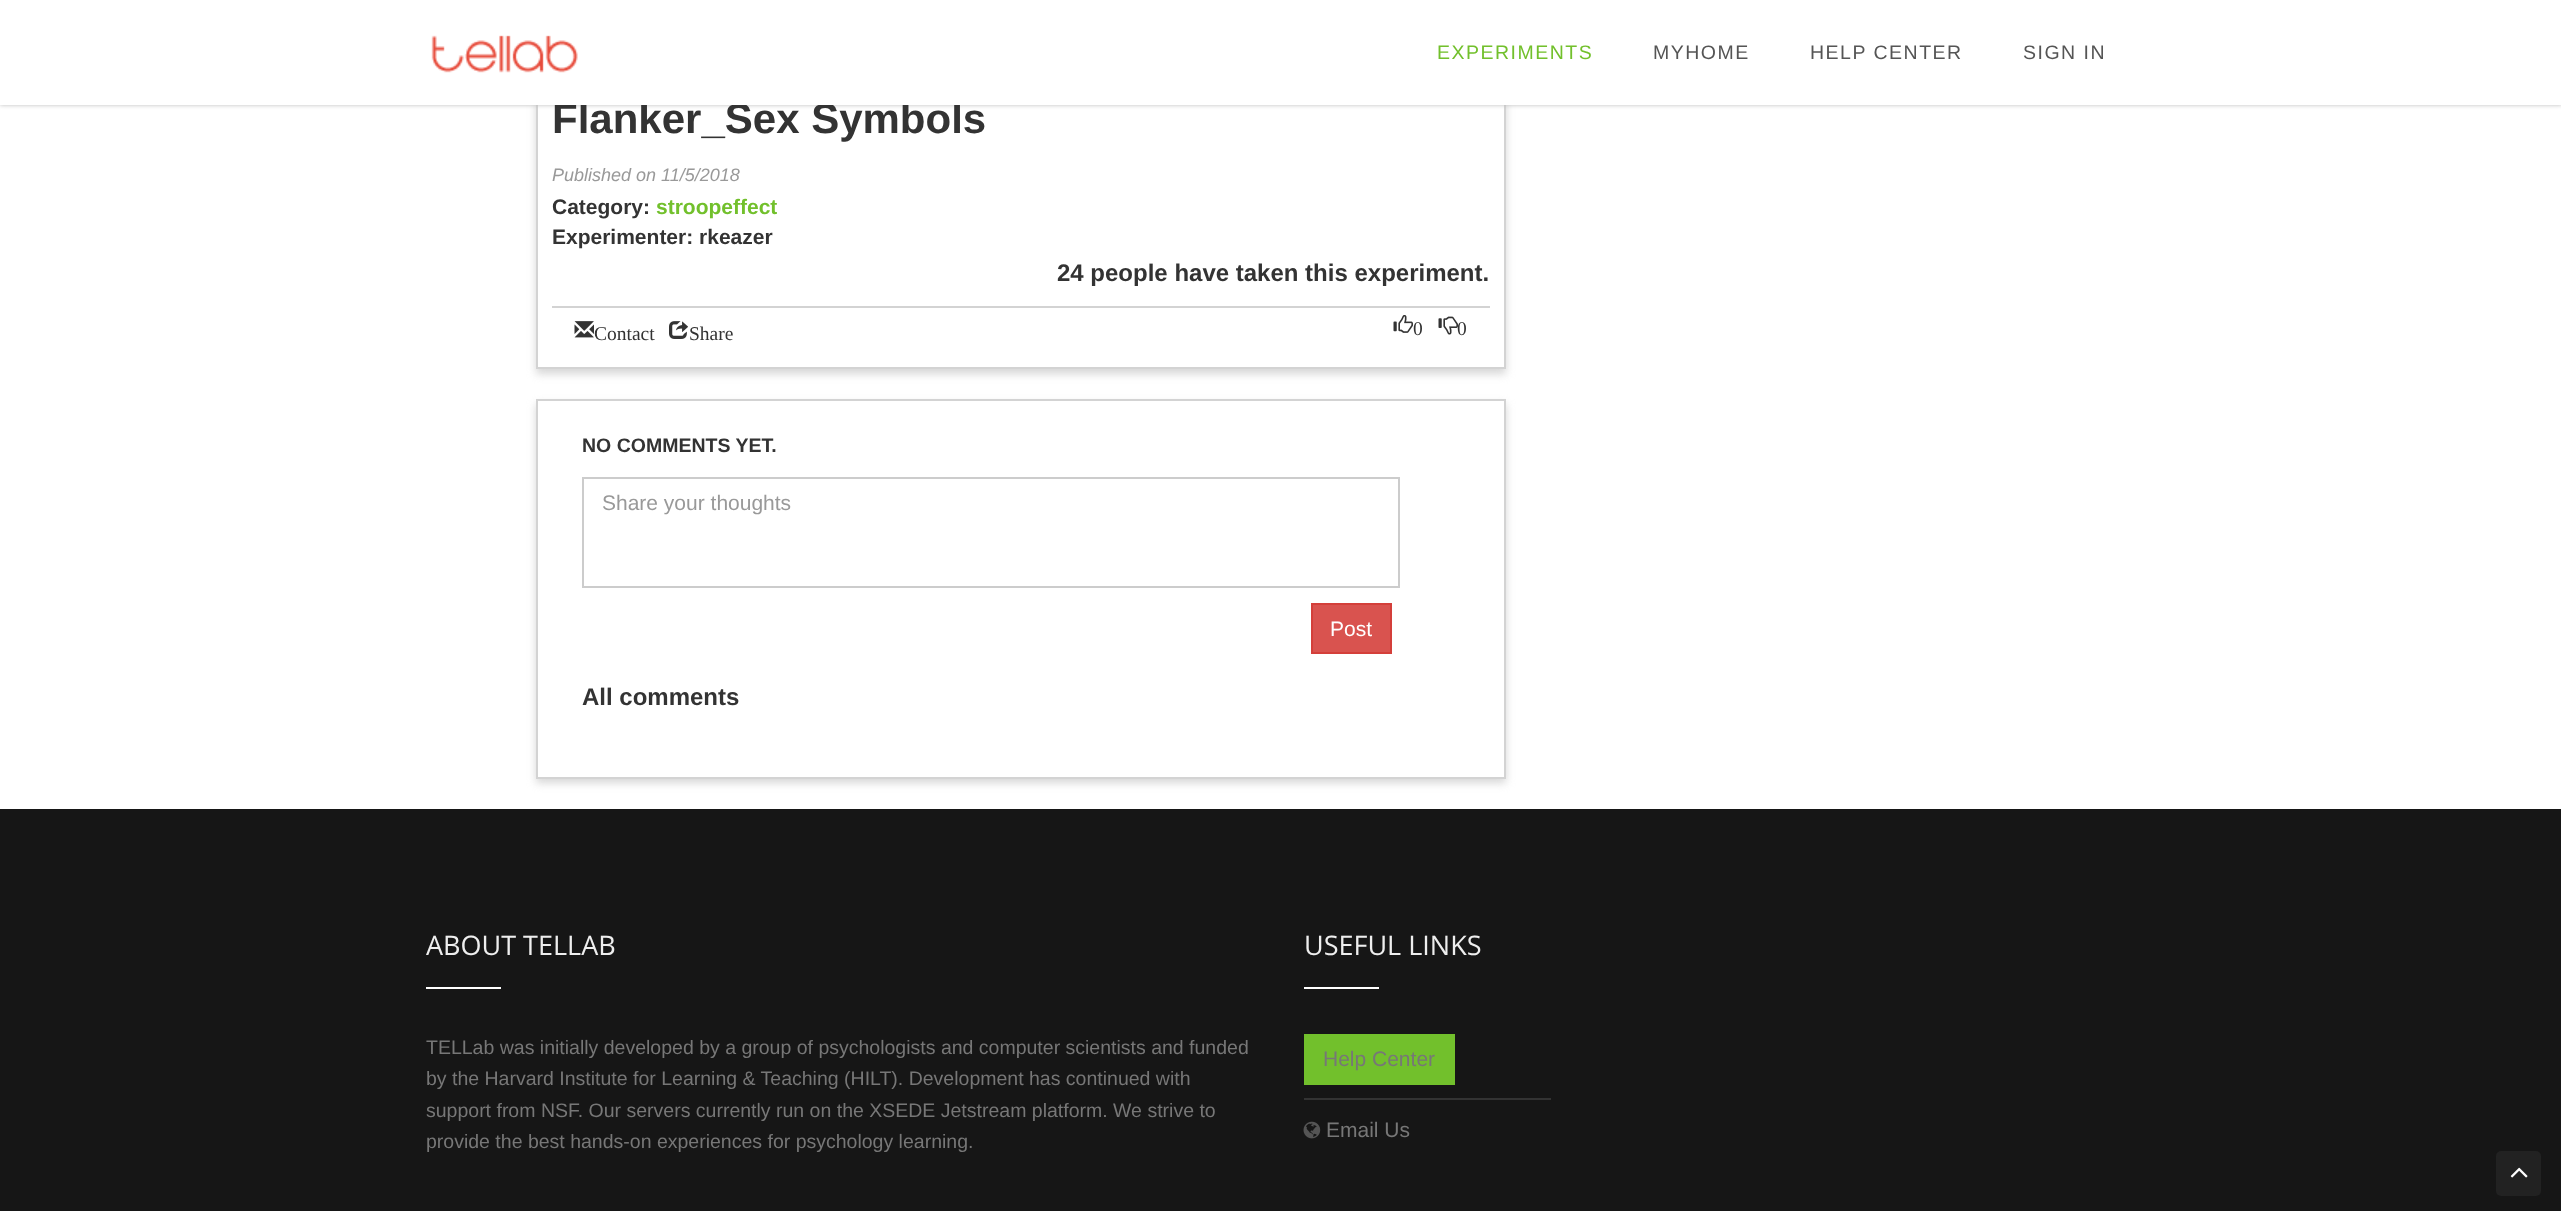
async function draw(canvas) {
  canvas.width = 2561;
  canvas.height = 1211;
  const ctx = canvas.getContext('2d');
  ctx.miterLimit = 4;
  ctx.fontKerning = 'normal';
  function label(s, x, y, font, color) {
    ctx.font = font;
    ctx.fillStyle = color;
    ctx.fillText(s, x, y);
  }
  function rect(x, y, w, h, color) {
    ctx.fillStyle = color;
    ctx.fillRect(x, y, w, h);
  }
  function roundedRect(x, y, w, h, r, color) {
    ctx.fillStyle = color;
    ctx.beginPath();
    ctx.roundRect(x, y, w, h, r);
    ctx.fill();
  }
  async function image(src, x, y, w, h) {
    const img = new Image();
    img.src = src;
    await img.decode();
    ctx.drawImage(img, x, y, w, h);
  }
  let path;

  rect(0, 0, 2561, 1211, '#fff');
  ctx.save();
  path = new Path2D('M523 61H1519V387H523ZM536 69H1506V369H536Z');
  ctx.clip(path, 'evenodd');
  ctx.fillStyle = '#d3d3d3ed';
  ctx.filter = 'blur(4px)';
  ctx.beginPath();
  ctx.rect(536, 74, 970, 300);
  ctx.fill();
  ctx.filter = 'none';
  ctx.restore();
  ctx.strokeStyle = '#d3d3d3';
  ctx.lineWidth = 2;
  ctx.strokeRect(537, 70, 968, 298);
  ctx.fillStyle = '#bbb';
  ctx.filter = 'blur(2px)';
  ctx.beginPath();
  ctx.rect(0, 0, 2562, 105);
  ctx.fill();
  ctx.filter = 'none';
  label('Flanker_Sex Symbols', 552, 133, 'bold 42px Liberation Sans', '#333');
  rect(0, 0, 2561, 105, '#fff');
  await image('assets/img1.png', 431, 35, 147, 38);
  ctx.letterSpacing = '1.5px';
  label('EXPERIMENTS', 1437, 59, '19.5px Liberation Sans', '#72c02c');
  label('MYHOME', 1653, 59, '19.5px Liberation Sans', '#555');
  label('HELP CENTER', 1810, 59, '19.5px Liberation Sans', '#555');
  label('SIGN IN', 2023, 59, '19.5px Liberation Sans', '#555');
  ctx.letterSpacing = '0px';
  label('Published on 11/5/2018', 552, 181, 'italic 18px Liberation Sans', '#999');
  label('Category:', 552, 214, 'bold 21px Liberation Sans', '#333');
  label('stroopeffect', 656, 214, 'bold 21px Liberation Sans', '#72c02c');
  label('Experimenter: rkeazer', 552, 244, 'bold 21px Liberation Sans', '#333');
  label('24 people have taken this experiment.', 1057, 281, 'bold 24px Liberation Sans', '#333');
  rect(552, 306, 938, 2, '#d3d3d3');
  await image('assets/img2.png', 574, 321, 20, 17);
  label('Contact', 594, 340, '19.5px Liberation Serif', '#333');
  await image('assets/img3.png', 669, 321, 19, 18);
  label('Share', 689, 340, '19.5px Liberation Serif', '#333');
  await image('assets/img4.png', 1393, 315, 20, 18);
  label('0', 1413, 335, '19.5px Liberation Serif', '#333');
  await image('assets/img5.png', 1438, 316, 20, 19);
  label('0', 1457, 335, '19.5px Liberation Serif', '#333');
  ctx.fillStyle = '#d3d3d3ed';
  ctx.filter = 'blur(4px)';
  ctx.beginPath();
  ctx.rect(536, 404, 970, 379);
  ctx.fill();
  ctx.filter = 'none';
  ctx.fillStyle = '#fff';
  ctx.beginPath();
  ctx.rect(537, 400, 968, 378);
  ctx.fill();
  ctx.stroke();
  label('NO COMMENTS YET.', 582, 452, 'bold 19.5px Liberation Sans', '#333');
  ctx.strokeStyle = '#ccc';
  ctx.strokeRect(583, 478, 816, 109);
  label('Share your thoughts', 602, 510, '21px Liberation Sans', '#999');
  ctx.fillStyle = '#d9534f';
  ctx.beginPath();
  ctx.rect(1312, 604, 79, 49);
  ctx.fill();
  ctx.strokeStyle = '#d43f3a';
  ctx.stroke();
  label('Post', 1330, 636, '21px Liberation Sans', '#fff');
  label('All comments', 582, 705, 'bold 24px Liberation Sans', '#333');
  rect(0, 809, 2561, 402, '#161616');
  label('ABOUT TELLAB', 426, 955, '27px Open Sans', '#eee');
  rect(426, 987, 75, 2, '#fff');
  label('TELLab was initially developed by a group of psychologists and computer scientists and funded', 426, 1054, '19.5px Liberation Sans', '#777');
  label('by the Harvard Institute for Learning & Teaching (HILT). Development has continued with', 426, 1085, '19.5px Liberation Sans', '#777');
  label('support from NSF. Our servers currently run on the XSEDE Jetstream platform. We strive to', 426, 1117, '19.5px Liberation Sans', '#777');
  label('provide the best hands-on experiences for psychology learning.', 426, 1148, '19.5px Liberation Sans', '#777');
  label('USEFUL LINKS', 1304, 955, '27px Open Sans', '#eee');
  rect(1304, 987, 75, 2, '#fff');
  rect(1304, 1034, 151, 51, '#72c02c');
  label('Help Center', 1323, 1066, '21px Liberation Sans', '#777');
  rect(1304, 1098, 247, 2, '#333');
  await image('assets/img6.png', 1303, 1121, 18, 18);
  label('Email Us', 1326, 1137, '21px Liberation Sans', '#777');
  roundedRect(2496, 1151, 45, 45, 5, '#222');
  await image('assets/img7.png', 2510, 1167, 18, 11);
}

draw(document.querySelector('canvas'));
